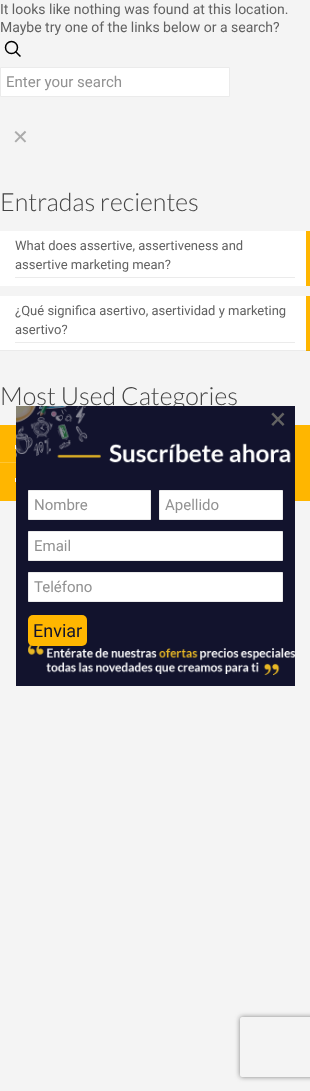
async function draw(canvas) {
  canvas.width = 310;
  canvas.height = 1091;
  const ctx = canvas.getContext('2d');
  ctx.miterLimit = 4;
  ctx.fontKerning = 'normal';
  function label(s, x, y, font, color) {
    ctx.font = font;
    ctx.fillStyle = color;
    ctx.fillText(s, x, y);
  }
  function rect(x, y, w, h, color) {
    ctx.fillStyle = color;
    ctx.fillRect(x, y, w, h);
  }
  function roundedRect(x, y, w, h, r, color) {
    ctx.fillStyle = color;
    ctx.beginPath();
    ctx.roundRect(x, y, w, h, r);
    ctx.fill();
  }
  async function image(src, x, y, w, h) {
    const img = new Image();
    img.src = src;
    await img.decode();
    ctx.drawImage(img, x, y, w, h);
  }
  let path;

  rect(0, 0, 310, 1091, '#f4f4f4');
  label('It looks like nothing was found at this location.', 0, 14, '14px Roboto', '#626262');
  label('Maybe try one of the links below or a search?', 0, 32, '14px Roboto', '#626262');
  ctx.beginPath();
  ctx.arc(11.5, 47.5, 6, 0, 2 * Math.PI);
  ctx.strokeStyle = '#000';
  ctx.lineWidth = 1.5;
  ctx.stroke();
  path = new Path2D('M15.5 51.5L20.5 56.5');
  ctx.stroke(path);
  ctx.fillStyle = '#fff';
  ctx.beginPath();
  ctx.rect(0.5, 67.5, 229, 29);
  ctx.fill();
  ctx.strokeStyle = '#ebebeb';
  ctx.lineWidth = 1;
  ctx.stroke();
  label('Enter your search', 6, 87, '15px Roboto', '#929292');
  label('✕', 12, 144, '20px DejaVu Sans', '#ababab');
  label('Entradas recientes', 0, 211, '300 25px Lato', '#444');
  rect(0, 231, 306, 55, '#fff');
  rect(15, 277, 280, 1, '#ebebeb');
  label('What does assertive, assertiveness and', 15, 250, '13px Roboto', '#626262');
  label('assertive marketing mean?', 15, 269, '13px Roboto', '#626262');
  rect(306, 231, 4, 55, '#ffb600');
  rect(0, 296, 306, 54, '#fff');
  rect(0, 350, 310, 1, '#ebebeb');
  rect(15, 342, 280, 1, '#ebebeb');
  label('¿Qué significa asertivo, asertividad y marketing', 15, 315, '13px Roboto', '#626262');
  label('asertivo?', 15, 334, '13px Roboto', '#626262');
  rect(306, 296, 4, 55, '#ffb600');
  rect(306, 350, 4, 1, '#eba700');
  label('Most Used Categories', 0, 405, '300 25px Lato', '#444');
  rect(0, 425, 310, 76, '#ffb600');
  rect(15, 445, 4, 4, '#fff');
  rect(0, 462, 16, 1, '#ffc533');
  rect(15, 478, 4, 4, '#fff');
  await image('assets/img1.png', 16, 406, 279, 280);
  label('×', 270, 429, '30px Roboto', '#626262');
  ctx.fillStyle = '#fff';
  ctx.beginPath();
  ctx.rect(28.5, 490.5, 122, 29);
  ctx.fill();
  ctx.stroke();
  label('Nombre', 34, 510, '15px Roboto', '#929292');
  ctx.fillStyle = '#fff';
  ctx.beginPath();
  ctx.rect(159.5, 490.5, 123, 29);
  ctx.fill();
  ctx.stroke();
  label('Apellido', 165, 510, '15px Roboto', '#929292');
  ctx.fillStyle = '#fff';
  ctx.beginPath();
  ctx.rect(28.5, 531.5, 254, 29);
  ctx.fill();
  ctx.stroke();
  label('Email', 34, 551, '15px Roboto', '#929292');
  ctx.fillStyle = '#fff';
  ctx.beginPath();
  ctx.rect(28.5, 572.5, 254, 29);
  ctx.fill();
  ctx.stroke();
  label('Teléfono', 34, 592, '15px Roboto', '#929292');
  roundedRect(28, 615, 59, 31, 5, '#ffb600');
  label('Enviar', 33, 637, '18px Roboto', '#12132d');
  ctx.save();
  path = new Path2D('M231 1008H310V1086H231ZM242 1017H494C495 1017 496 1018 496 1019V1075C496 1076 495 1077 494 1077H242C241 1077 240 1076 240 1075V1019C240 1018 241 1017 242 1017Z');
  ctx.clip(path, 'evenodd');
  ctx.fillStyle = '#808080';
  ctx.filter = 'blur(2.5px)';
  ctx.beginPath();
  ctx.roundRect(240, 1017, 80, 60, 2);
  ctx.fill();
  ctx.filter = 'none';
  ctx.restore();
}

draw(document.querySelector('canvas'));
